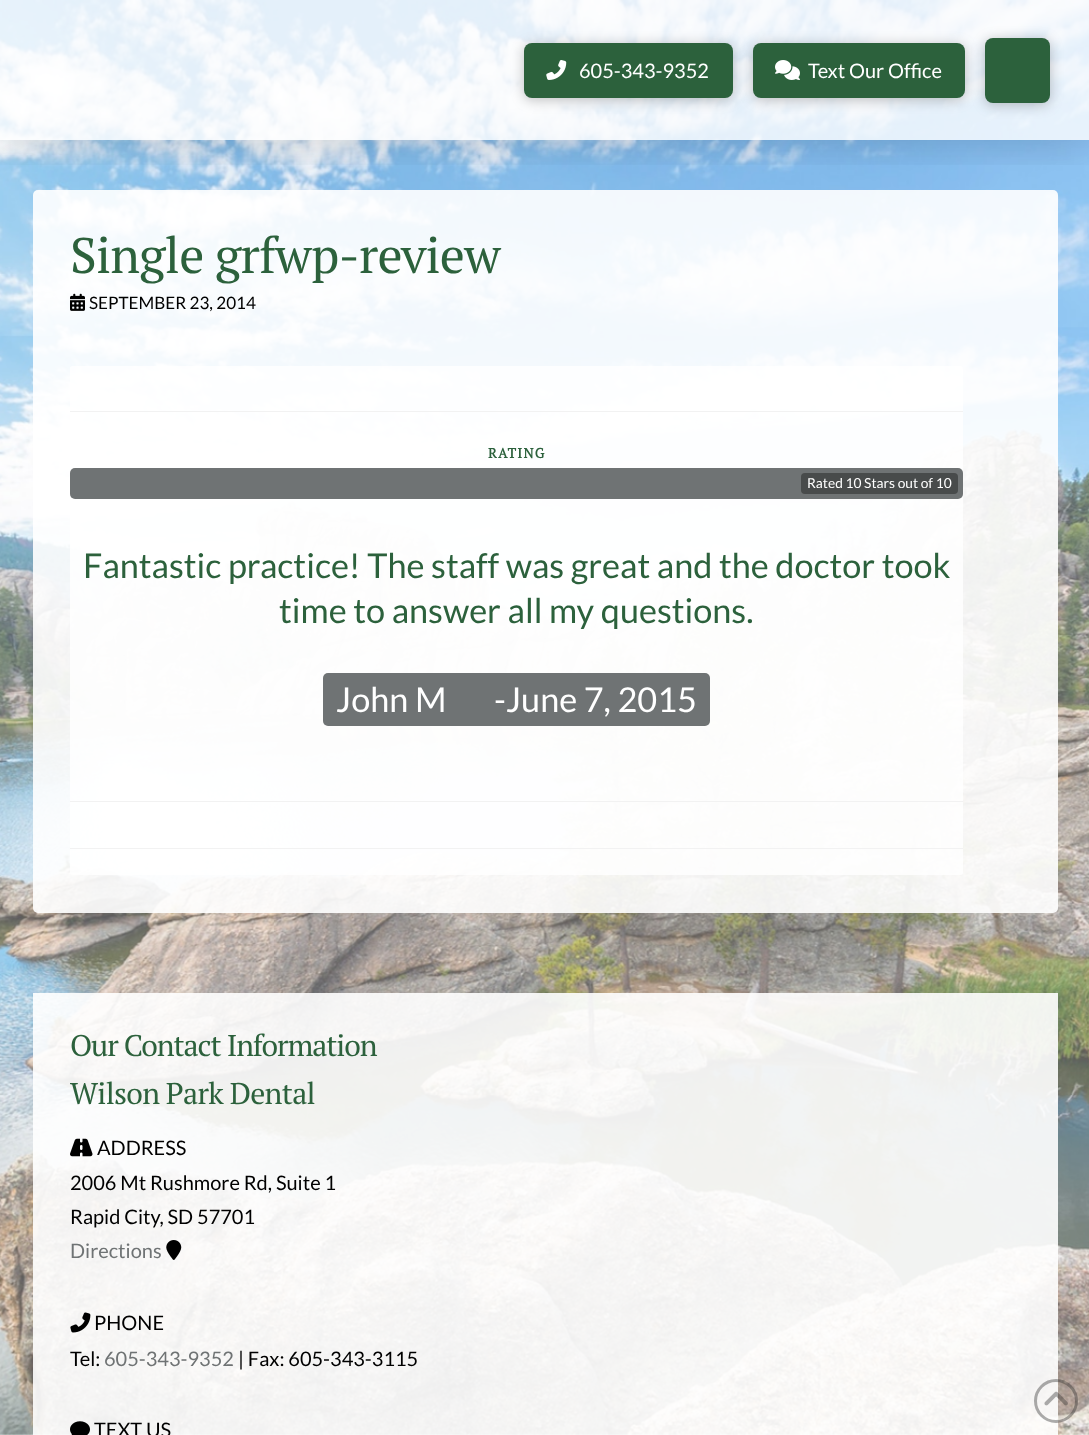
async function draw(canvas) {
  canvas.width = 1089;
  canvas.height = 1435;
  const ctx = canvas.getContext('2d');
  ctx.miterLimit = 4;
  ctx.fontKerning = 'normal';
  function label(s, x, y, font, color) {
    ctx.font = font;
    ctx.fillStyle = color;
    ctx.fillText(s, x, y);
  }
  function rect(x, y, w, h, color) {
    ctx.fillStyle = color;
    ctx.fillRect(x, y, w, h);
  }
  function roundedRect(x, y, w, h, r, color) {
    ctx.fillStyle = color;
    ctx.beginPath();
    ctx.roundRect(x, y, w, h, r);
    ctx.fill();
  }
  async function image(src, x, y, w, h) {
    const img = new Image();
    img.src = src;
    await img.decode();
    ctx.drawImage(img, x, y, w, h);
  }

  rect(0, 0, 1089, 1435, '#fff');
  await image('assets/img1.png', 0, 0, 1089, 1435);
  roundedRect(33, 190, 1025, 723, 5, '#ffffffe6');
  ctx.save();
  ctx.beginPath();
  ctx.rect(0, 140, 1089, 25);
  ctx.clip();
  ctx.fillStyle = '#00000026';
  ctx.filter = 'blur(20px)';
  ctx.beginPath();
  ctx.rect(0, 3, 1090, 140);
  ctx.fill();
  ctx.filter = 'none';
  ctx.restore();
  rect(0, 0, 1089, 140, '#ffffffcc');
  ctx.fillStyle = '#00000040';
  ctx.filter = 'blur(6.5px)';
  ctx.beginPath();
  ctx.roundRect(524, 45, 209, 55, 8);
  ctx.fill();
  ctx.filter = 'none';
  roundedRect(524, 43, 209, 55, 8, '#2c613c');
  await image('assets/img2.png', 546, 60, 21, 20);
  label('605-343-9352', 579, 78, '20px Lato', '#fff');
  ctx.fillStyle = '#00000040';
  ctx.filter = 'blur(6.5px)';
  ctx.beginPath();
  ctx.roundRect(753, 45, 212, 55, 8);
  ctx.fill();
  ctx.filter = 'none';
  roundedRect(753, 43, 212, 55, 8, '#2c613c');
  await image('assets/img3.png', 775, 60, 25, 20);
  label('Text Our Office', 808, 78, '20px Lato', '#fff');
  ctx.fillStyle = '#00000040';
  ctx.filter = 'blur(6.5px)';
  ctx.beginPath();
  ctx.roundRect(985, 40, 65, 65, 8);
  ctx.fill();
  ctx.filter = 'none';
  roundedRect(985, 38, 65, 65, 8, '#2c613c');
  ctx.letterSpacing = '-0.75px';
  label('Single grfwp-review', 70, 273, '50px PT Serif', '#2c613c');
  await image('assets/img4.png', 70, 293, 15, 18);
  ctx.letterSpacing = '0px';
  label('SEPTEMBER 23, 2014', 89, 309, '17.1px Lato', '#000');
  roundedRect(70, 366, 893, 509, 2.5, '#ffffffcc');
  rect(70, 411, 893, 1, '#f2f2f2');
  rect(70, 801, 893, 1, '#f2f2f2');
  ctx.letterSpacing = '1.25px';
  label('RATING', 488, 458, 'bold 13.75px PT Serif', '#2c613c');
  roundedRect(70, 468, 893, 31, 5, '#6f7374');
  roundedRect(801, 473, 157, 21, 4, '#484b4b');
  ctx.letterSpacing = '0px';
  label('Rated 10 Stars out of 10', 807, 488, '13.75px Lato', '#fff');
  label('Fantastic practice! The staff was great and the doctor took', 83, 578, '34.25px Lato', '#2c613c');
  label('time to answer all my questions.', 279, 623, '34.25px Lato', '#2c613c');
  ctx.fillStyle = '#6f7374';
  ctx.beginPath();
  ctx.roundRect(323, 673, 123, 53, [5, 0, 0, 5]);
  ctx.fill();
  label('John M', 336, 712, '34.25px Lato', '#fff');
  rect(446, 673, 42, 53, '#6f7374');
  ctx.beginPath();
  ctx.roundRect(488, 673, 222, 53, [0, 5, 5, 0]);
  ctx.fill();
  label('-June 7, 2015', 494, 712, '34.25px Lato', '#fff');
  rect(70, 848, 893, 1, '#f2f2f2');
  rect(33, 993, 1025, 442, '#ffffffe6');
  ctx.letterSpacing = '-1.1px';
  label('Our Contact Information', 70, 1056, '30px PT Serif', '#2c613c');
  ctx.letterSpacing = '-0.7px';
  label('Wilson Park Dental', 70, 1104, '30px PT Serif', '#2c613c');
  await image('assets/img5.png', 70, 1138, 23, 19);
  ctx.letterSpacing = '0px';
  label('ADDRESS', 97, 1155, '20px Lato', '#000');
  label('2006 Mt Rushmore Rd, Suite 1', 70, 1190, '20px Lato', '#000');
  label('Rapid City, SD 57701', 70, 1224, '20px Lato', '#000');
  label('Directions', 70, 1258, '20px Lato', '#6f7374');
  await image('assets/img6.png', 166, 1240, 16, 20);
  await image('assets/img7.png', 70, 1312, 21, 21);
  label('PHONE', 94, 1330, '20px Lato', '#000');
  label('Tel:', 70, 1366, '20px Lato', '#000');
  label('605-343-9352', 104, 1366, '20px Lato', '#6f7374');
  label('| Fax: 605-343-3115', 238, 1366, '20px Lato', '#000');
  await image('assets/img8.png', 70, 1421, 20, 14);
  label('TEXT US', 94, 1437, '20px Lato', '#000');
  ctx.beginPath();
  ctx.arc(1056, 1401, 20.5, 0, 2 * Math.PI);
  ctx.strokeStyle = '#27272761';
  ctx.lineWidth = 3;
  ctx.stroke();
  await image('assets/img9.png', 1044, 1391, 24, 15);
}

draw(document.querySelector('canvas'));
